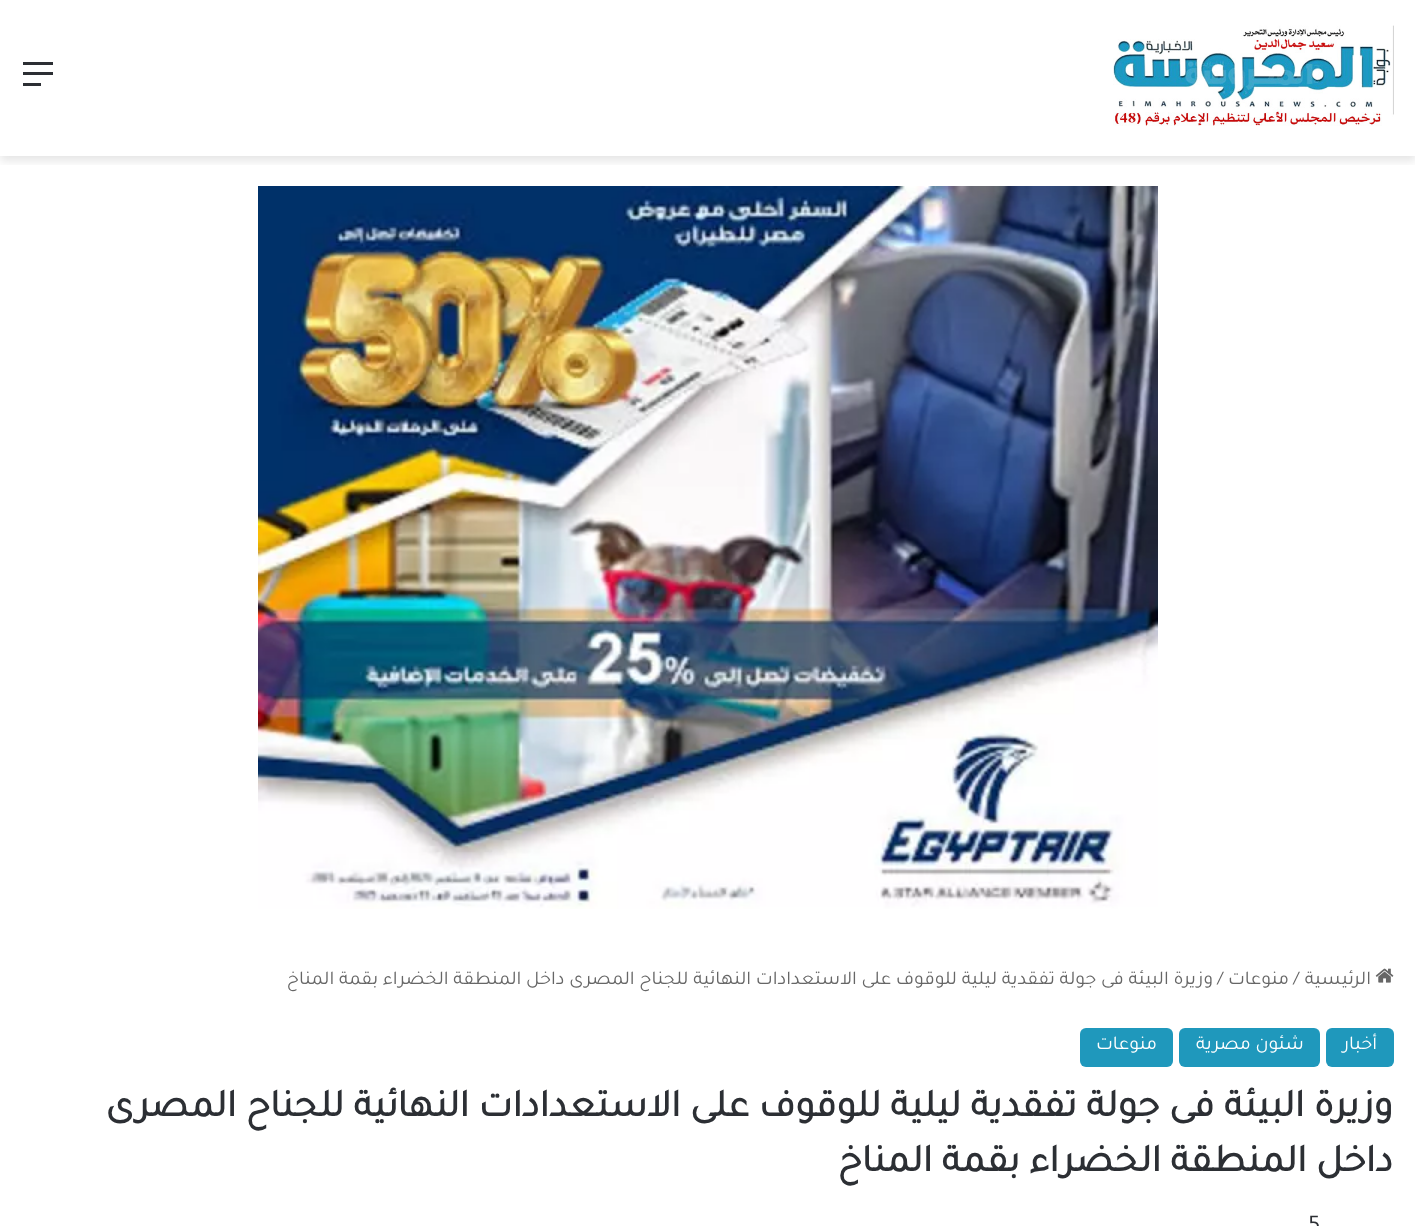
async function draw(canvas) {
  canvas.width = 1415;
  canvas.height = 1226;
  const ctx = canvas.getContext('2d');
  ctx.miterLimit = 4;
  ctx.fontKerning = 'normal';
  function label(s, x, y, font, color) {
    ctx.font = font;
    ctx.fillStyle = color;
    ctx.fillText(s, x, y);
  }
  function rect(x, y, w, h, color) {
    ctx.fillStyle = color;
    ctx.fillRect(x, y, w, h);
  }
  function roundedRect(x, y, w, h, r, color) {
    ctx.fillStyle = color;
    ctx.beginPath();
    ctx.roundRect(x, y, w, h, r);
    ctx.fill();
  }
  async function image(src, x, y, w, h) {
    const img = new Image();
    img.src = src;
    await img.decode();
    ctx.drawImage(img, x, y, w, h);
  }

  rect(0, 0, 1415, 1226, '#fff');
  ctx.save();
  ctx.beginPath();
  ctx.rect(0, 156, 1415, 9);
  ctx.clip();
  ctx.fillStyle = '#0000001a';
  ctx.filter = 'blur(5px)';
  ctx.beginPath();
  ctx.rect(0, 5, 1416, 156);
  ctx.fill();
  ctx.filter = 'none';
  ctx.restore();
  await image('assets/img1.png', 1113, 25, 281, 101);
  rect(23, 72, 30, 3, '#2c2f34');
  rect(23, 62, 30, 3, '#2c2f34');
  rect(23, 83, 18, 3, '#2c2f34');
  await image('assets/img2.png', 258, 186, 900, 723);
  await image('assets/img3.png', 1375, 968, 19, 15);
  ctx.direction = 'rtl';
  label('الرئيسية', 1371, 984, '19.5px Tajawal', '#666');
  ctx.direction = 'ltr';
  label('/', 1293, 984, '19.5px Tajawal', '#666');
  ctx.direction = 'rtl';
  label('منوعات', 1289, 984, '19.5px Tajawal', '#666');
  ctx.direction = 'ltr';
  label('/', 1217, 984, '19.5px Tajawal', '#666');
  ctx.direction = 'rtl';
  label('وزيرة البيئة فى جولة تفقدية ليلية للوقوف على الاستعدادات النهائية للجناح المصرى داخل المنطقة الخضراء بقمة المناخ', 1213, 984, '19.5px Tajawal', '#666');
  roundedRect(1326, 1028, 68, 39, 6, '#1f98bc');
  label('أخبار', 1377, 1049, '19.5px Tajawal', '#fff');
  roundedRect(1179, 1028, 141, 39, 6, '#1f98bc');
  label('شئون مصرية', 1304, 1049, '19.5px Tajawal', '#fff');
  roundedRect(1080, 1028, 93, 39, 6, '#1f98bc');
  label('منوعات', 1157, 1049, '19.5px Tajawal', '#fff');
  label('وزيرة البيئة فى جولة تفقدية ليلية للوقوف على الاستعدادات النهائية للجناح المصرى', 1393, 1116, 'bold 39px Tajawal', '#2c2f34');
  label('داخل المنطقة الخضراء بقمة المناخ', 1393, 1171, 'bold 39px Tajawal', '#2c2f34');
  ctx.direction = 'ltr';
  label('5', 1308, 1231, '24px Tajawal', '#2c2f34');
}

draw(document.querySelector('canvas'));
